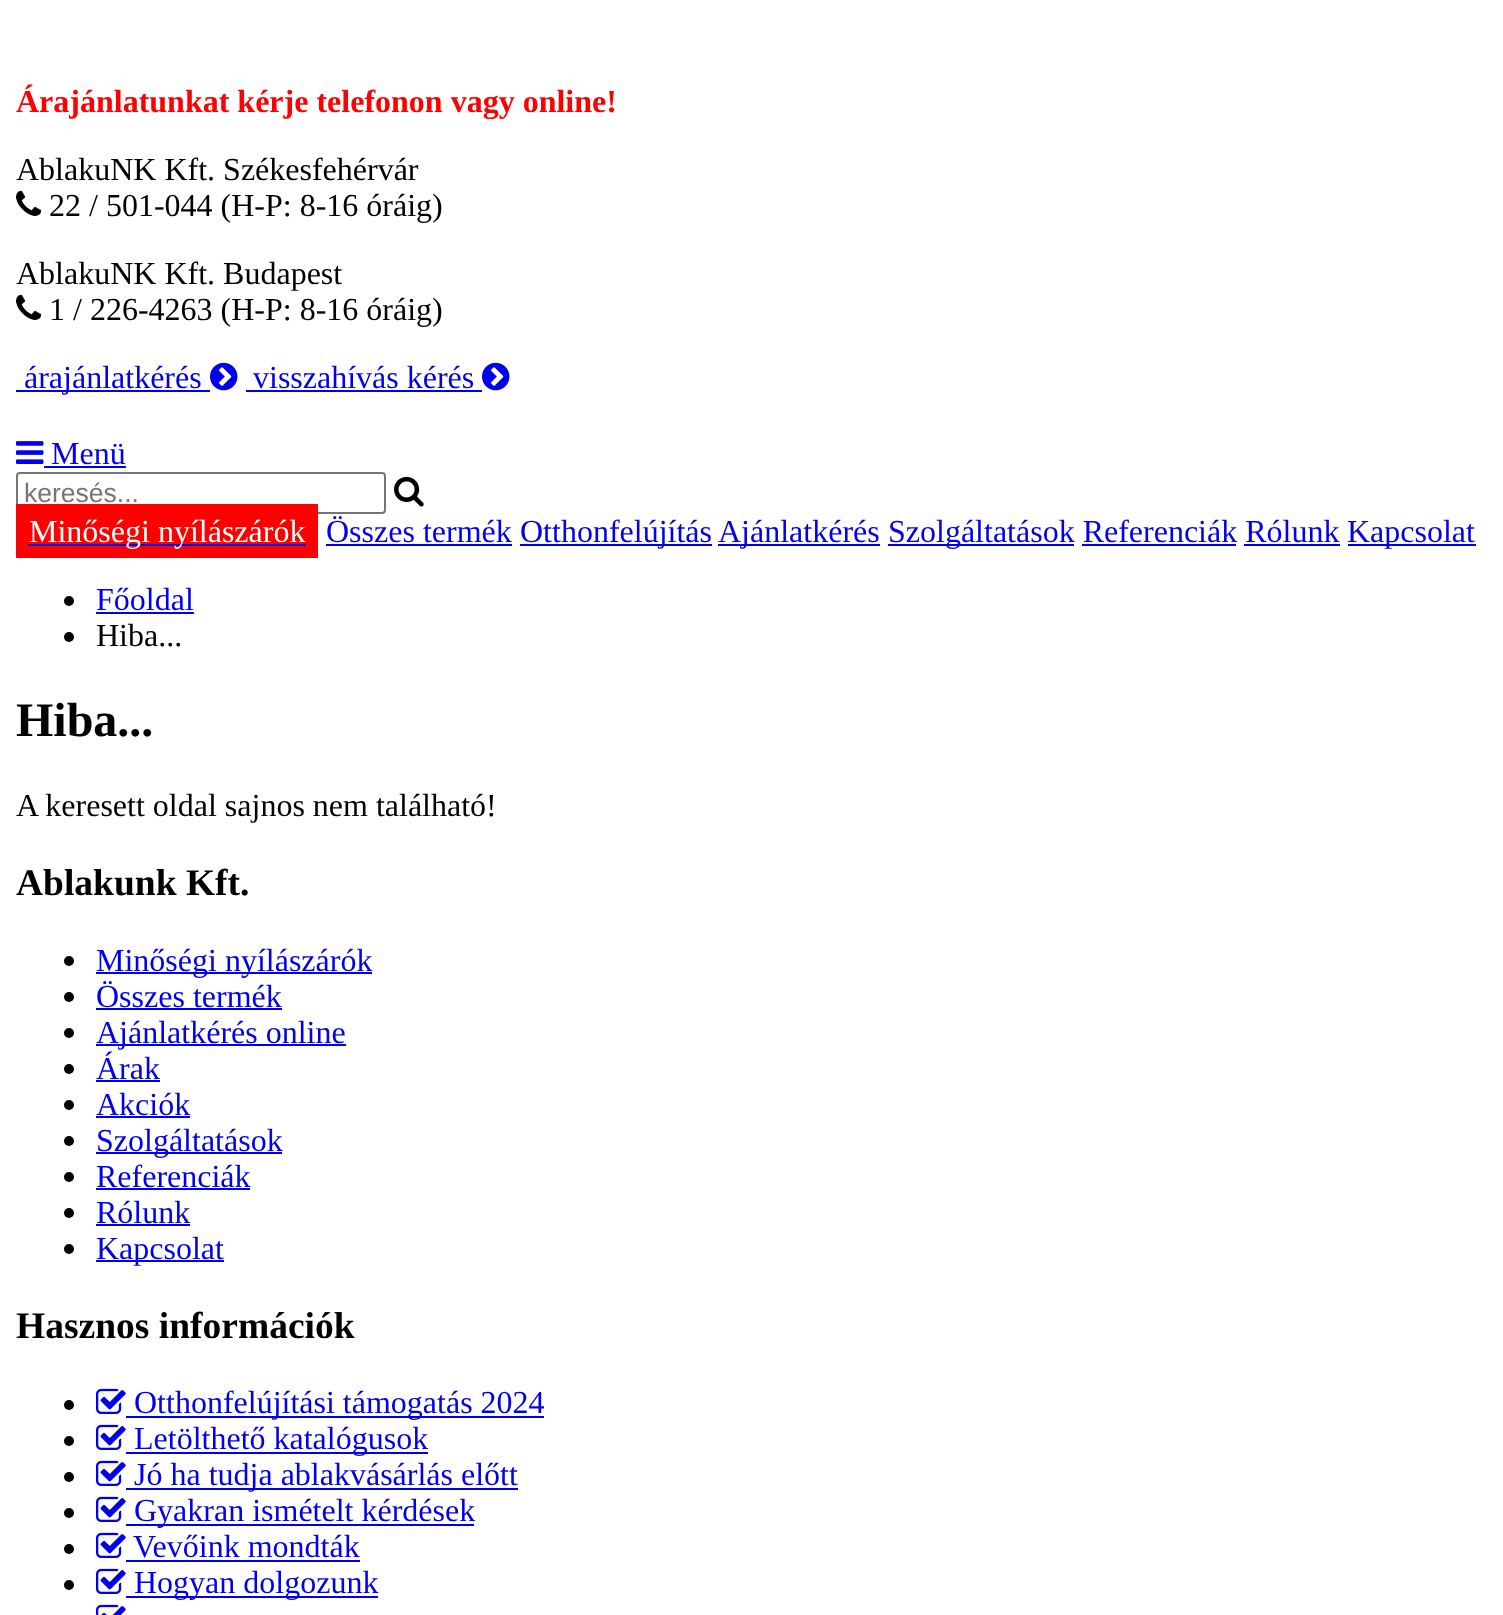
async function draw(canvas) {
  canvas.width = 1503;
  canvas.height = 1615;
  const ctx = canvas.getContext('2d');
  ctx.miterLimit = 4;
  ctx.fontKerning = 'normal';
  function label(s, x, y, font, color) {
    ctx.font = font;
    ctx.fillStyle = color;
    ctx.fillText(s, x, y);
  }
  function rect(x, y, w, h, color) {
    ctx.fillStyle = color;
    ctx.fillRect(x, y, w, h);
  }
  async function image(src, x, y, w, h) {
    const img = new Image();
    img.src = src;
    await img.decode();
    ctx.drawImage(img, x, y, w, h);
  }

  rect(0, 0, 1503, 1615, '#fff');
  label('Árajánlatunkat kérje telefonon vagy online!', 16, 112, 'bold 32px Liberation Serif', '#f00');
  label('AblakuNK Kft. Székesfehérvár', 16, 180, '32px Liberation Serif', '#000');
  await image('assets/img1.png', 16, 190, 26, 26);
  label('22 / 501-044 (H-P: 8-16 óráig)', 49, 216, '32px Liberation Serif', '#000');
  label('AblakuNK Kft. Budapest', 16, 284, '32px Liberation Serif', '#000');
  await image('assets/img1.png', 16, 294, 26, 26);
  label('1 / 226-4263 (H-P: 8-16 óráig)', 49, 320, '32px Liberation Serif', '#000');
  rect(16, 390, 194, 2, '#00e');
  label('árajánlatkérés', 24, 388, '32px Liberation Serif', '#00e');
  await image('assets/img2.png', 210, 362, 28, 29);
  label('visszahívás kérés', 253, 388, '32px Liberation Serif', '#00e');
  rect(246, 390, 236, 2, '#00e');
  await image('assets/img2.png', 482, 362, 28, 29);
  await image('assets/img3.png', 16, 441, 28, 23);
  label('Menü', 51, 464, '32px Liberation Serif', '#00e');
  rect(44, 466, 82, 2, '#00e');
  ctx.beginPath();
  ctx.roundRect(17, 473, 368, 40, 3);
  ctx.strokeStyle = '#767676';
  ctx.lineWidth = 2;
  ctx.stroke();
  label('keresés...', 24, 502, '26.5px Liberation Sans', '#757575');
  await image('assets/img4.png', 394, 476, 30, 31);
  rect(16, 504, 302, 54, '#f00');
  rect(28, 544, 278, 2, '#00e');
  label('Minőségi nyílászárók', 29, 542, '32px Liberation Serif', '#fff');
  label('Összes termék', 326, 542, '32px Liberation Serif', '#00e');
  rect(326, 544, 186, 2, '#00e');
  rect(520, 544, 192, 2, '#00e');
  label('Otthonfelújítás', 520, 542, '32px Liberation Serif', '#00e');
  rect(718, 544, 162, 2, '#00e');
  label('Ajánlatkérés', 718, 542, '32px Liberation Serif', '#00e');
  rect(888, 544, 186, 2, '#00e');
  label('Szolgáltatások Referenciák Rólunk', 888, 542, '32px Liberation Serif', '#00e');
  rect(1348, 544, 128, 2, '#00e');
  label('Kapcsolat', 1347, 542, '32px Liberation Serif', '#00e');
  rect(1082, 544, 154, 2, '#00e');
  rect(1244, 544, 96, 2, '#00e');
  ctx.fillStyle = '#000';
  ctx.beginPath();
  ctx.arc(69, 601, 5, 0, 2 * Math.PI);
  ctx.fill();
  label('Főoldal', 96, 610, '32px Liberation Serif', '#00e');
  rect(96, 612, 98, 2, '#00e');
  ctx.fillStyle = '#000';
  ctx.beginPath();
  ctx.arc(69, 637, 5, 0, 2 * Math.PI);
  ctx.fill();
  label('Hiba...', 96, 646, '32px Liberation Serif', '#000');
  label('Hiba...', 16, 736, 'bold 48px Liberation Serif', '#000');
  label('A keresett oldal sajnos nem található!', 16, 816, '32px Liberation Serif', '#000');
  label('Ablakunk Kft.', 16, 895, 'bold 37.5px Liberation Serif', '#000');
  ctx.beginPath();
  ctx.arc(69, 961, 5, 0, 2 * Math.PI);
  ctx.fill();
  rect(96, 972, 276, 2, '#00e');
  label('Minőségi nyílászárók', 96, 971, '32px Liberation Serif', '#00e');
  ctx.fillStyle = '#000';
  ctx.beginPath();
  ctx.arc(69, 997, 5, 0, 2 * Math.PI);
  ctx.fill();
  label('Összes termék', 96, 1007, '32px Liberation Serif', '#00e');
  rect(96, 1008, 186, 2, '#00e');
  ctx.fillStyle = '#000';
  ctx.beginPath();
  ctx.arc(69, 1033, 5, 0, 2 * Math.PI);
  ctx.fill();
  rect(96, 1044, 250, 2, '#00e');
  label('Ajánlatkérés online', 96, 1043, '32px Liberation Serif', '#00e');
  ctx.fillStyle = '#000';
  ctx.beginPath();
  ctx.arc(69, 1069, 5, 0, 2 * Math.PI);
  ctx.fill();
  label('Árak', 96, 1079, '32px Liberation Serif', '#00e');
  rect(96, 1080, 64, 2, '#00e');
  ctx.fillStyle = '#000';
  ctx.beginPath();
  ctx.arc(69, 1105, 5, 0, 2 * Math.PI);
  ctx.fill();
  label('Akciók', 96, 1115, '32px Liberation Serif', '#00e');
  rect(96, 1116, 94, 2, '#00e');
  ctx.fillStyle = '#000';
  ctx.beginPath();
  ctx.arc(69, 1141, 5, 0, 2 * Math.PI);
  ctx.fill();
  rect(96, 1152, 186, 2, '#00e');
  label('Szolgáltatások', 96, 1151, '32px Liberation Serif', '#00e');
  ctx.fillStyle = '#000';
  ctx.beginPath();
  ctx.arc(69, 1177, 5, 0, 2 * Math.PI);
  ctx.fill();
  label('Referenciák', 96, 1187, '32px Liberation Serif', '#00e');
  rect(96, 1188, 154, 2, '#00e');
  ctx.fillStyle = '#000';
  ctx.beginPath();
  ctx.arc(69, 1213, 5, 0, 2 * Math.PI);
  ctx.fill();
  label('Rólunk', 96, 1223, '32px Liberation Serif', '#00e');
  rect(96, 1224, 94, 2, '#00e');
  ctx.fillStyle = '#000';
  ctx.beginPath();
  ctx.arc(69, 1249, 5, 0, 2 * Math.PI);
  ctx.fill();
  rect(96, 1260, 128, 2, '#00e');
  label('Kapcsolat', 96, 1259, '32px Liberation Serif', '#00e');
  label('Hasznos információk', 16, 1338, 'bold 37.5px Liberation Serif', '#000');
  ctx.beginPath();
  ctx.arc(69, 1405, 5, 0, 2 * Math.PI);
  ctx.fill();
  await image('assets/img5.png', 96, 1388, 30, 26);
  rect(126, 1416, 418, 2, '#00e');
  label('Otthonfelújítási támogatás 2024', 134, 1413, '32px Liberation Serif', '#00e');
  ctx.fillStyle = '#000';
  ctx.beginPath();
  ctx.arc(69, 1441, 5, 0, 2 * Math.PI);
  ctx.fill();
  await image('assets/img5.png', 96, 1424, 30, 26);
  rect(126, 1452, 302, 2, '#00e');
  label('Letölthető katalógusok', 134, 1449, '32px Liberation Serif', '#00e');
  ctx.fillStyle = '#000';
  ctx.beginPath();
  ctx.arc(69, 1477, 5, 0, 2 * Math.PI);
  ctx.fill();
  await image('assets/img5.png', 96, 1460, 30, 26);
  rect(126, 1488, 392, 2, '#00e');
  label('Jó ha tudja ablakvásárlás előtt', 134, 1485, '32px Liberation Serif', '#00e');
  ctx.fillStyle = '#000';
  ctx.beginPath();
  ctx.arc(69, 1513, 5, 0, 2 * Math.PI);
  ctx.fill();
  await image('assets/img5.png', 96, 1496, 30, 26);
  rect(126, 1524, 348, 2, '#00e');
  label('Gyakran ismételt kérdések', 134, 1521, '32px Liberation Serif', '#00e');
  ctx.fillStyle = '#000';
  ctx.beginPath();
  ctx.arc(69, 1549, 5, 0, 2 * Math.PI);
  ctx.fill();
  await image('assets/img5.png', 96, 1532, 30, 26);
  label('Vevőink mondták', 133, 1557, '32px Liberation Serif', '#00e');
  rect(126, 1560, 234, 2, '#00e');
  ctx.fillStyle = '#000';
  ctx.beginPath();
  ctx.arc(69, 1585, 5, 0, 2 * Math.PI);
  ctx.fill();
  await image('assets/img5.png', 96, 1568, 30, 26);
  rect(126, 1596, 252, 2, '#00e');
  label('Hogyan dolgozunk', 134, 1593, '32px Liberation Serif', '#00e');
  await image('assets/img6.png', 96, 1604, 30, 11);
}

draw(document.querySelector('canvas'));
